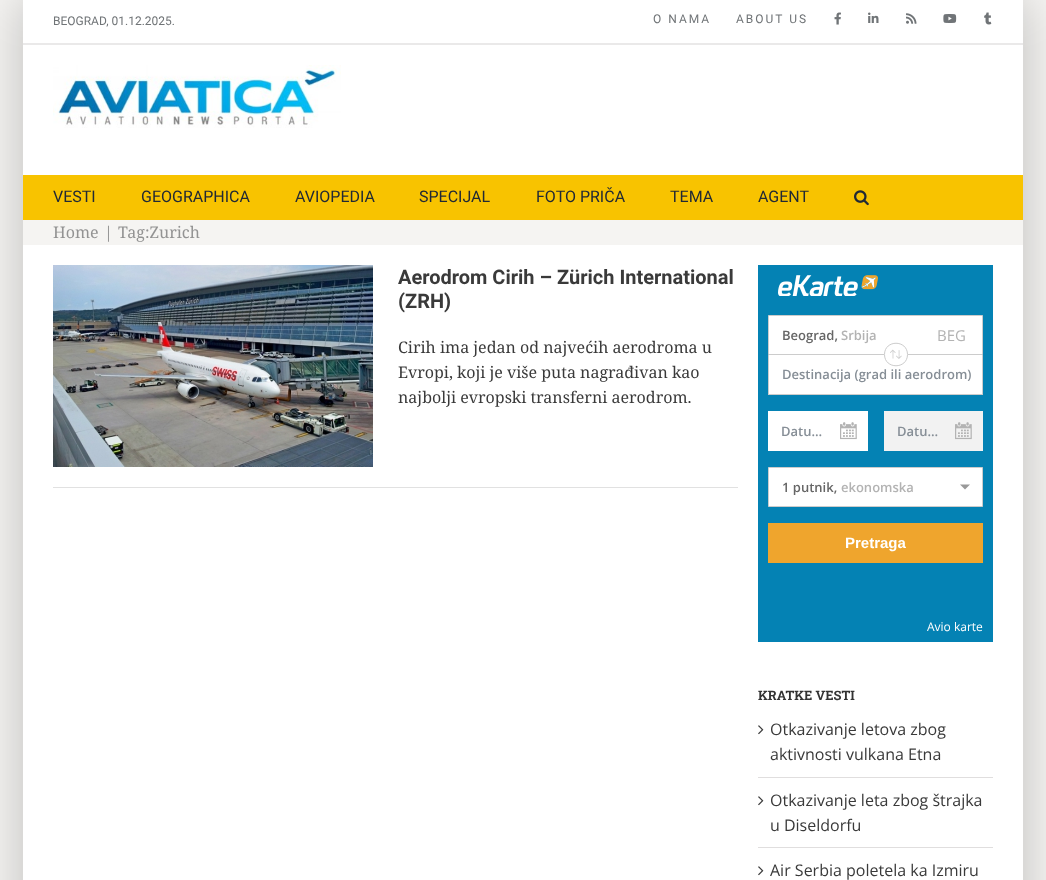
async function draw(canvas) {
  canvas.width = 1046;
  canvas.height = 880;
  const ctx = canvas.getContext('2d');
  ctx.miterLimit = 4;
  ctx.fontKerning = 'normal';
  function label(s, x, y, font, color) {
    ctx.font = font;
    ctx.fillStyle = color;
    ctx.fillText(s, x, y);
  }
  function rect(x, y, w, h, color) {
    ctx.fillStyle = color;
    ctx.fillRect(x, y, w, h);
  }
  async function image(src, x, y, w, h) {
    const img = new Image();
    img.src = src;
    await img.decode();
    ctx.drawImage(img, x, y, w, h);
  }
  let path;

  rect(0, 0, 1046, 880, '#f5f4f2');
  ctx.save();
  path = new Path2D('M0 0H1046V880H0ZM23 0H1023V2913H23Z');
  ctx.clip(path, 'evenodd');
  ctx.fillStyle = '#00000038';
  ctx.filter = 'blur(25px)';
  ctx.beginPath();
  ctx.rect(22, -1, 1002, 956);
  ctx.fill();
  ctx.filter = 'none';
  ctx.restore();
  rect(23, 0, 1000, 175, '#fff');
  rect(23, 43, 1000, 2, '#eae9e9');
  label('BEOGRAD, 01.12.2025.', 53, 25, '12px Roboto', '#707477');
  ctx.letterSpacing = '2px';
  label('O NAMA', 653, 23, '12px Roboto', '#707477');
  label('ABOUT US', 736, 23, '12px Roboto', '#707477');
  await image('assets/img1.png', 834, 12, 7, 13);
  await image('assets/img2.png', 868, 12, 11, 11);
  await image('assets/img3.png', 906, 13, 11, 11);
  await image('assets/img4.png', 943, 14, 14, 9);
  await image('assets/img5.png', 984, 12, 8, 13);
  await image('assets/img6.png', 53, 65, 288, 63);
  rect(23, 175, 1000, 45, '#f8c300');
  ctx.letterSpacing = '0px';
  label('VESTI', 53, 202, '16px Roboto', '#212934');
  label('GEOGRAPHICA', 141, 202, '16px Roboto', '#212934');
  label('AVIOPEDIA', 295, 202, '16px Roboto', '#212934');
  label('SPECIJAL', 419, 202, '16px Roboto', '#212934');
  label('FOTO PRIČA', 536, 202, '16px Roboto', '#212934');
  label('TEMA', 670, 202, '16px Roboto', '#212934');
  label('AGENT', 758, 202, '16px Roboto', '#212934');
  await image('assets/img7.png', 854, 190, 15, 16);
  label('Home', 53, 238, '16px Noto Serif', '#939393');
  label('|', 104, 238, '16px Noto Serif', '#939393');
  label('Tag:Zurich', 118, 238, '16px Noto Serif', '#939393');
  rect(23, 245, 1000, 635, '#fff');
  rect(53, 487, 685, 1, '#e1e1e1');
  await image('assets/img8.png', 53, 265, 320, 202);
  label('Aerodrom Cirih – Zürich International', 398, 284, 'bold 20px Roboto', '#3a3a3a');
  label('(ZRH)', 398, 308, 'bold 20px Roboto', '#3a3a3a');
  label('Cirih ima jedan od najvećih aerodroma u', 398, 353, '16px Noto Serif', '#3a3a3a');
  label('Evropi, koji je više puta nagrađivan kao', 398, 378, '16px Noto Serif', '#3a3a3a');
  label('najbolji evropski transferni aerodrom.', 398, 403, '16px Noto Serif', '#3a3a3a');
  rect(758, 265, 235, 377, '#0482b4');
  await image('assets/img9.png', 778, 275, 100, 21);
  ctx.fillStyle = '#fff';
  ctx.beginPath();
  ctx.rect(768.5, 315.5, 214, 39);
  ctx.fill();
  ctx.strokeStyle = '#ccc';
  ctx.stroke();
  label('Beograd,', 782, 340, '600 13px Open Sans', '#666');
  label('Srbija', 841, 340, '600 13px Open Sans', '#b3b3b3');
  label('BEG', 937, 341, '15px Open Sans', '#b3b3b3');
  rect(769, 355, 213, 39, '#fff');
  path = new Path2D('M908 354.5C908 370.5 884 370.5 884 354.5C884 339 908 339 908 354.5Z');
  ctx.fill(path);
  path = new Path2D('M907.5 354.5C907.5 369.5 884.5 369.5 884.5 354.5C884.5 339.5 907.5 339.5 907.5 354.5Z');
  ctx.stroke(path);
  await image('assets/img10.png', 890, 349, 12, 10);
  rect(982, 355, 1, 40, '#ccc');
  rect(768, 394, 215, 1, '#ccc');
  rect(768, 355, 1, 40, '#ccc');
  label('Destinacija (grad ili aerodrom)', 782, 379, '600 13px Open Sans', '#868e96');
  rect(768, 411, 100, 40, '#fff');
  label('Datu…', 781, 436, '600 13px Open Sans', '#868e96');
  await image('assets/img11.png', 840, 422, 17, 18);
  rect(884, 411, 99, 40, '#f2f2f2');
  label('Datu…', 897, 436, '600 13px Open Sans', '#868e96');
  await image('assets/img12.png', 955, 422, 17, 18);
  ctx.fillStyle = '#fff';
  ctx.beginPath();
  ctx.rect(768.5, 467.5, 214, 39);
  ctx.fill();
  ctx.stroke();
  label('1 putnik,', 782, 492, '600 13px Open Sans', '#666');
  label('ekonomska', 841, 492, '600 13px Open Sans', '#b3b3b3');
  ctx.fillStyle = '#999';
  path = new Path2D('M970 484.5L965 489.5L960 484.5Z');
  ctx.fill(path);
  rect(768, 523, 215, 40, '#efa52d');
  label('Pretraga', 845, 548, 'bold 15px Liberation Sans', '#fff');
  label('Avio karte', 927, 631, '12px Open Sans', '#fff');
  label('KRATKE VESTI', 758, 700, 'bold 13px Roboto Slab', '#333');
  rect(758, 777, 235, 1, '#e0dede');
  await image('assets/img13.png', 758, 725, 6, 10);
  label('Otkazivanje letova zbog', 770, 735, '16px Open Sans', '#3a3a3a');
  label('aktivnosti vulkana Etna', 770, 760, '16px Open Sans', '#3a3a3a');
  rect(758, 847, 235, 1, '#e0dede');
  await image('assets/img13.png', 758, 796, 6, 10);
  label('Otkazivanje leta zbog štrajka', 770, 806, '16px Open Sans', '#3a3a3a');
  label('u Diseldorfu', 770, 831, '16px Open Sans', '#3a3a3a');
  await image('assets/img13.png', 758, 866, 6, 10);
  label('Air Serbia poletela ka Izmiru', 770, 876, '16px Open Sans', '#3a3a3a');
}

draw(document.querySelector('canvas'));
